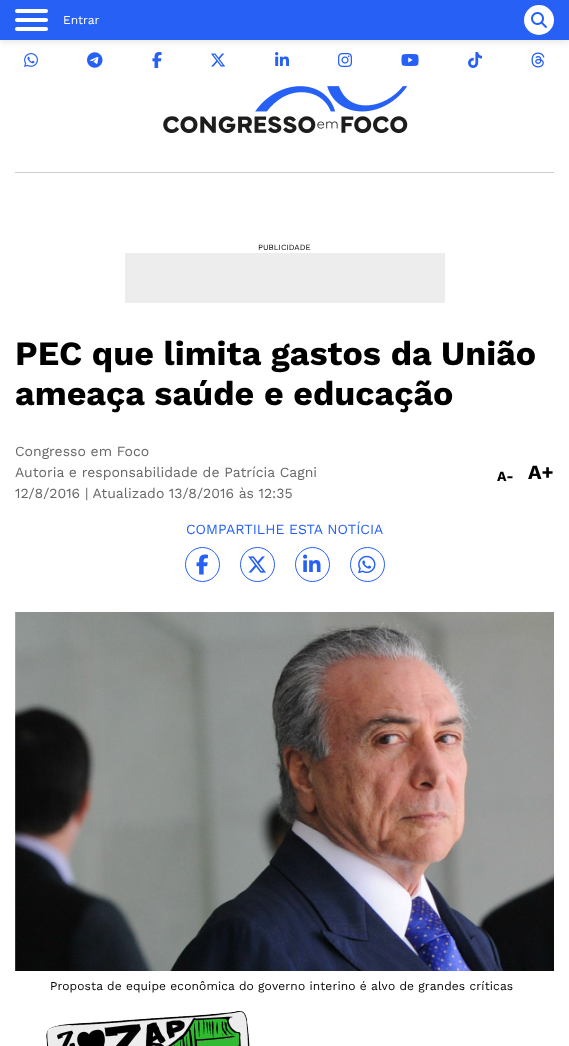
async function draw(canvas) {
  canvas.width = 569;
  canvas.height = 1046;
  const ctx = canvas.getContext('2d');
  ctx.miterLimit = 4;
  ctx.fontKerning = 'normal';
  function label(s, x, y, font, color) {
    ctx.font = font;
    ctx.fillStyle = color;
    ctx.fillText(s, x, y);
  }
  function rect(x, y, w, h, color) {
    ctx.fillStyle = color;
    ctx.fillRect(x, y, w, h);
  }
  function roundedRect(x, y, w, h, r, color) {
    ctx.fillStyle = color;
    ctx.beginPath();
    ctx.roundRect(x, y, w, h, r);
    ctx.fill();
  }
  async function image(src, x, y, w, h) {
    const img = new Image();
    img.src = src;
    await img.decode();
    ctx.drawImage(img, x, y, w, h);
  }

  rect(0, 0, 569, 1046, '#fff');
  await image('assets/img3.png', 87, 52, 16, 16);
  await image('assets/img4.png', 152, 52, 10, 16);
  await image('assets/img6.png', 275, 52, 14, 14);
  await image('assets/img9.png', 468, 52, 14, 16);
  await image('assets/img10.png', 531, 52, 14, 16);
  ctx.fillStyle = '#7a7a7a29';
  ctx.filter = 'blur(3px)';
  ctx.beginPath();
  ctx.rect(0, 3, 569, 40);
  ctx.fill();
  ctx.filter = 'none';
  rect(0, 0, 569, 40, '#2660f5');
  roundedRect(15, 9, 33, 4, 2, '#fff');
  roundedRect(15, 18, 33, 4, 2, '#fff');
  roundedRect(15, 27, 33, 4, 2, '#fff');
  label('Entrar', 63, 24, '12px Work Sans', '#fff');
  ctx.beginPath();
  ctx.arc(539, 20, 15, 0, 2 * Math.PI);
  ctx.fill();
  await image('assets/img1.png', 531, 12, 16, 16);
  await image('assets/img2.png', 24, 53, 14, 14);
  await image('assets/img5.png', 211, 53, 15, 14);
  await image('assets/img7.png', 338, 53, 14, 14);
  await image('assets/img8.png', 401, 54, 18, 12);
  await image('assets/img11.png', 163, 86, 245, 47);
  rect(15, 172, 539, 1, '#cecece');
  label('PUBLICIDADE', 258, 250, '8px Work Sans', '#000');
  rect(125, 253, 320, 50, '#ededed');
  label('PEC que limita gastos da União', 15, 365, 'bold 34px Work Sans', '#000');
  label('ameaça saúde e educação', 15, 405, 'bold 34px Work Sans', '#000');
  label('Congresso em Foco', 15, 456, '14px Work Sans', '#676767');
  label('Autoria e responsabilidade de Patrícia Cagni', 15, 477, '14px Work Sans', '#676767');
  label('12/8/2016 | Atualizado 13/8/2016 às 12:35', 15, 498, '14px Work Sans', '#676767');
  label('A-', 497, 481, 'bold 14px Work Sans', '#000');
  label('A+', 528, 479, 'bold 20px Work Sans', '#000');
  label('COMPARTILHE ESTA NOTÍCIA', 186, 534, '14px Work Sans', '#2660f5');
  ctx.beginPath();
  ctx.arc(202.5, 564.5, 17, 0, 2 * Math.PI);
  ctx.strokeStyle = '#2660f5';
  ctx.stroke();
  await image('assets/img12.png', 196, 554, 12, 21);
  ctx.beginPath();
  ctx.arc(257.5, 564.5, 17, 0, 2 * Math.PI);
  ctx.stroke();
  await image('assets/img13.png', 248, 556, 18, 17);
  ctx.beginPath();
  ctx.arc(312.5, 564.5, 17, 0, 2 * Math.PI);
  ctx.stroke();
  await image('assets/img14.png', 303, 554, 18, 18);
  ctx.beginPath();
  ctx.arc(367.5, 564.5, 17, 0, 2 * Math.PI);
  ctx.stroke();
  await image('assets/img15.png', 358, 555, 18, 19);
  await image('assets/img16.png', 15, 612, 539, 359);
  ctx.letterSpacing = '0.12px';
  label('Proposta de equipe econômica do governo interino é alvo de grandes críticas', 50, 990, '12px Work Sans', '#000');
  await image('assets/img17.png', 46, 1011, 204, 35);
}

draw(document.querySelector('canvas'));
